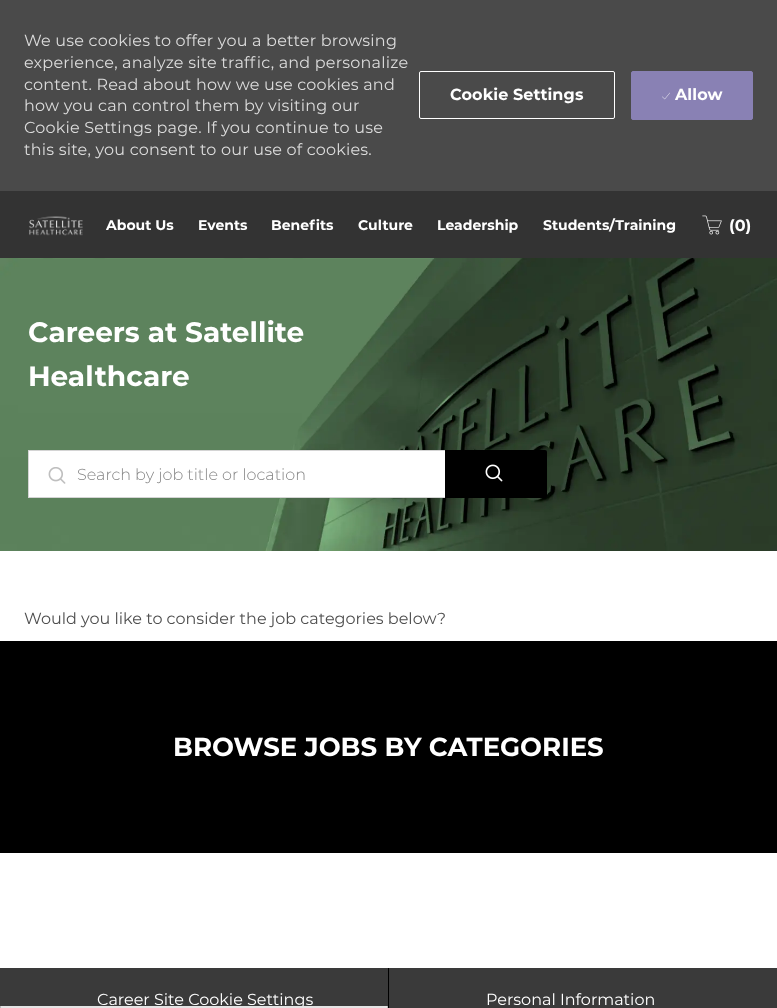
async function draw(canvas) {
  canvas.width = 777;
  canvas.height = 1008;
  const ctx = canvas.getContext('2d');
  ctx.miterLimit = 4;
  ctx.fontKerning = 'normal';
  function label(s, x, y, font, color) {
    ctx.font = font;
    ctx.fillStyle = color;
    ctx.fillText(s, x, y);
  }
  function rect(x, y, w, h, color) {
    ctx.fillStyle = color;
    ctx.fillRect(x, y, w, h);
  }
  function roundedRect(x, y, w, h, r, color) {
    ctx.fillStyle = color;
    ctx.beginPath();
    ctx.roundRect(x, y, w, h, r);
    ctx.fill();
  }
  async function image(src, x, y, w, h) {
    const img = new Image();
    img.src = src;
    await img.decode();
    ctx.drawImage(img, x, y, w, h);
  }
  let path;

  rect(0, 0, 777, 1008, '#fff');
  rect(0, 0, 777, 191, '#4a4a4a');
  ctx.letterSpacing = '0.2px';
  label('We use cookies to offer you a better browsing', 24, 46, '16px Montserrat', '#dbdbdb');
  label('experience, analyze site traffic, and personalize', 24, 68, '16px Montserrat', '#dbdbdb');
  label('content. Read about how we use cookies and', 24, 90, '16px Montserrat', '#dbdbdb');
  label('how you can control them by visiting our', 24, 111, '16px Montserrat', '#dbdbdb');
  label('Cookie Settings page. If you continue to use', 24, 133, '16px Montserrat', '#dbdbdb');
  label('this site, you consent to our use of cookies.', 24, 155, '16px Montserrat', '#dbdbdb');
  ctx.beginPath();
  ctx.roundRect(419.5, 71.5, 195, 47, 1.5);
  ctx.strokeStyle = '#fff';
  ctx.stroke();
  ctx.letterSpacing = '0.1px';
  label('Cookie Settings', 450, 100, 'bold 16px Montserrat', '#fff');
  ctx.fillStyle = '#8981b4';
  ctx.beginPath();
  ctx.roundRect(631.5, 71.5, 121, 48, 1.5);
  ctx.fill();
  ctx.strokeStyle = '#8981b4';
  ctx.stroke();
  await image('assets/img1.png', 662, 92, 8, 8);
  label('Allow', 675, 100, 'bold 16px Montserrat', '#fff');
  rect(0, 191, 777, 67, '#333');
  await image('assets/img2.png', 29, 216, 54, 20);
  ctx.letterSpacing = '0px';
  label('About Us', 106, 230, 'bold 14px Montserrat', '#fff');
  label('Events', 198, 230, 'bold 14px Montserrat', '#fff');
  label('Benefits', 271, 230, 'bold 14px Montserrat', '#fff');
  label('Culture', 358, 230, 'bold 14px Montserrat', '#fff');
  label('Leadership', 437, 230, 'bold 14px Montserrat', '#fff');
  label('Students/Training', 543, 230, 'bold 14px Montserrat', '#fff');
  await image('assets/img3.png', 702, 215, 20, 20);
  label('(0)', 729, 231, 'bold 16px Montserrat', '#fff');
  await image('assets/img4.png', 0, 258, 777, 293);
  label('Careers at Satellite', 28, 342, 'bold 28px Montserrat', '#fff');
  label('Healthcare', 28, 386, 'bold 28px Montserrat', '#fff');
  rect(29, 451, 416, 46, '#fff');
  await image('assets/img5.png', 48, 467, 18, 17);
  ctx.fillStyle = '#d4d4d4';
  path = new Path2D('M28 450H446L445 451H29Z');
  ctx.fill(path);
  path = new Path2D('M446 498H28L29 497H445Z');
  ctx.fill(path);
  rect(28, 450, 1, 48, '#d4d4d4');
  label('Search by job title or location', 77, 480, '300 16px Montserrat', '#858585');
  ctx.fillStyle = '#000';
  ctx.beginPath();
  ctx.roundRect(445, 450, 102, 48, [0, 2, 2, 0]);
  ctx.fill();
  await image('assets/img6.png', 485, 464, 18, 18);
  label('Would you like to consider the job categories below?', 24, 624, '16px Montserrat', '#4f4f4f');
  rect(0, 641, 777, 212, '#000');
  label('BROWSE JOBS BY CATEGORIES', 173, 756, 'bold 26px Montserrat', '#fff');
  rect(0, 968, 777, 40, '#3a3a3a');
  label('Career Site Cookie Settings', 97, 1005, '16px Montserrat', '#fff');
  roundedRect(0, 1006, 388, 2, 1, '#e4e4e4');
  rect(388, 968, 1, 40, '#000');
  label('Personal Information', 486, 1005, '16px Montserrat', '#fff');
}

draw(document.querySelector('canvas'));
